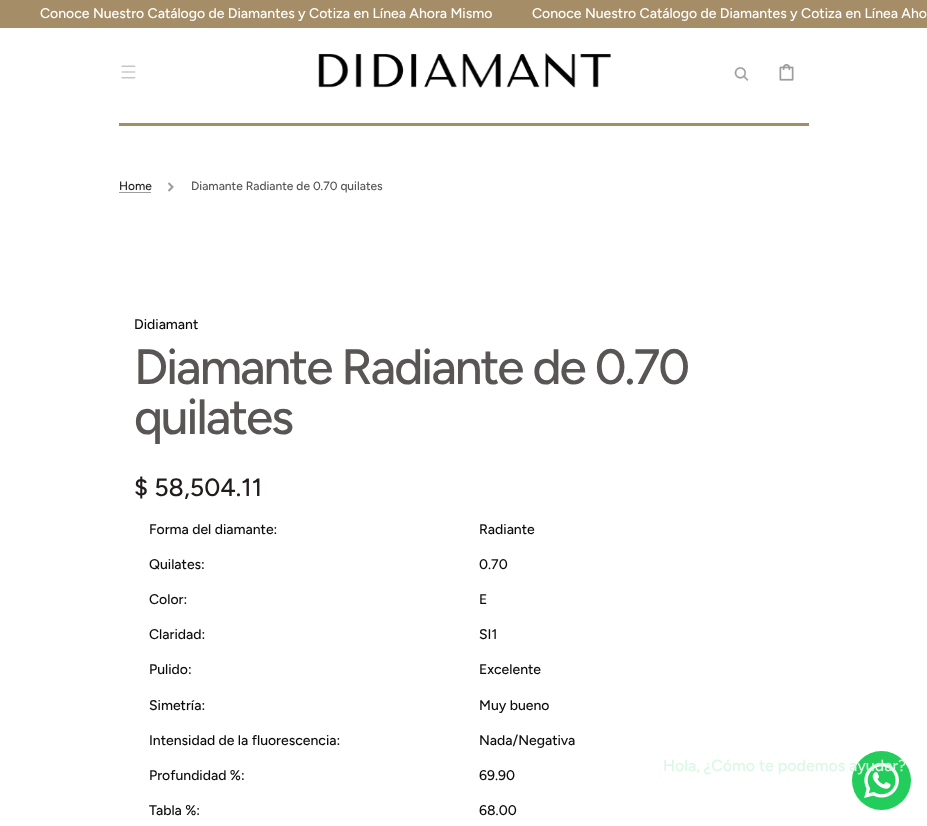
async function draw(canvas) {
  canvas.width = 927;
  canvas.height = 826;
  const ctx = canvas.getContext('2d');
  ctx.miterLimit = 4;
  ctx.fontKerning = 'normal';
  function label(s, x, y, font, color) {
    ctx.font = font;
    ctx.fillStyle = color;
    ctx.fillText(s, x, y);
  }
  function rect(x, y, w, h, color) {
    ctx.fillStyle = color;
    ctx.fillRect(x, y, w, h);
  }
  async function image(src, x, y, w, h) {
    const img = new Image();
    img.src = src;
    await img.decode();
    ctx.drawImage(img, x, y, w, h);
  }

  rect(0, 0, 927, 826, '#fff');
  rect(0, 0, 927, 28, '#a48d67');
  label('Conoce Nuestro Catálogo de Diamantes y Cotiza en Línea Ahora Mismo', 40, 18, '500 14px Figtree', '#fff');
  label('Conoce Nuestro Catálogo de Diamantes y Cotiza en Línea Aho', 532, 18, '500 14px Figtree', '#fff');
  await image('assets/img1.png', 121, 65, 15, 14);
  await image('assets/img2.png', 318, 53, 293, 35);
  await image('assets/img3.png', 734, 67, 15, 14);
  await image('assets/img4.png', 779, 64, 15, 17);
  rect(119, 123, 690, 3, '#a48d67');
  label('Home', 119, 190, '500 12px Figtree', '#211c1c');
  rect(119, 192, 32, 1, '#9d9d9d');
  await image('assets/img5.png', 167, 182, 7, 10);
  label('Diamante Radiante de 0.70 quilates', 191, 190, '500 12px Figtree', '#595555');
  label('Didiamant', 134, 329, '500 14px Figtree', '#0d0c0c');
  ctx.letterSpacing = '-2px';
  label('Diamante Radiante de 0.70', 134, 384, '500 49.5px Figtree', '#595555');
  label('quilates', 134, 434, '500 49.5px Figtree', '#595555');
  ctx.letterSpacing = '0px';
  label('$ 58,504.11', 134, 496, '500 25px Figtree', '#211c1c');
  label('Forma del diamante:', 149, 534, '500 14px Figtree', '#0d0c0c');
  label('Radiante', 479, 534, '500 14px Figtree', '#0d0c0c');
  label('Quilates:', 149, 569, '500 14px Figtree', '#0d0c0c');
  label('0.70', 479, 569, '500 14px Figtree', '#0d0c0c');
  label('Color:', 149, 604, '500 14px Figtree', '#0d0c0c');
  label('E', 479, 604, '500 14px Figtree', '#0d0c0c');
  label('Claridad:', 149, 639, '500 14px Figtree', '#0d0c0c');
  label('SI1', 479, 639, '500 14px Figtree', '#0d0c0c');
  label('Pulido:', 149, 674, '500 14px Figtree', '#0d0c0c');
  label('Excelente', 479, 674, '500 14px Figtree', '#0d0c0c');
  label('Simetría:', 149, 710, '500 14px Figtree', '#0d0c0c');
  label('Muy bueno', 479, 710, '500 14px Figtree', '#0d0c0c');
  label('Intensidad de la fluorescencia:', 149, 745, '500 14px Figtree', '#0d0c0c');
  label('Nada/Negativa', 479, 745, '500 14px Figtree', '#0d0c0c');
  label('Profundidad %:', 149, 780, '500 14px Figtree', '#0d0c0c');
  label('69.90', 479, 780, '500 14px Figtree', '#0d0c0c');
  label('Tabla %:', 149, 815, '500 14px Figtree', '#0d0c0c');
  label('68.00', 479, 815, '500 14px Figtree', '#0d0c0c');
  ctx.fillStyle = '#22cd5b';
  ctx.beginPath();
  ctx.arc(881.5, 780.5, 29.5, 0, 2 * Math.PI);
  ctx.fill();
  await image('assets/img6.png', 864, 763, 35, 35);
  label('Hola, ¿Cómo te podemos ayudar?', 663, 771, '500 16px Figtree', '#dbf7e5');
}

draw(document.querySelector('canvas'));
